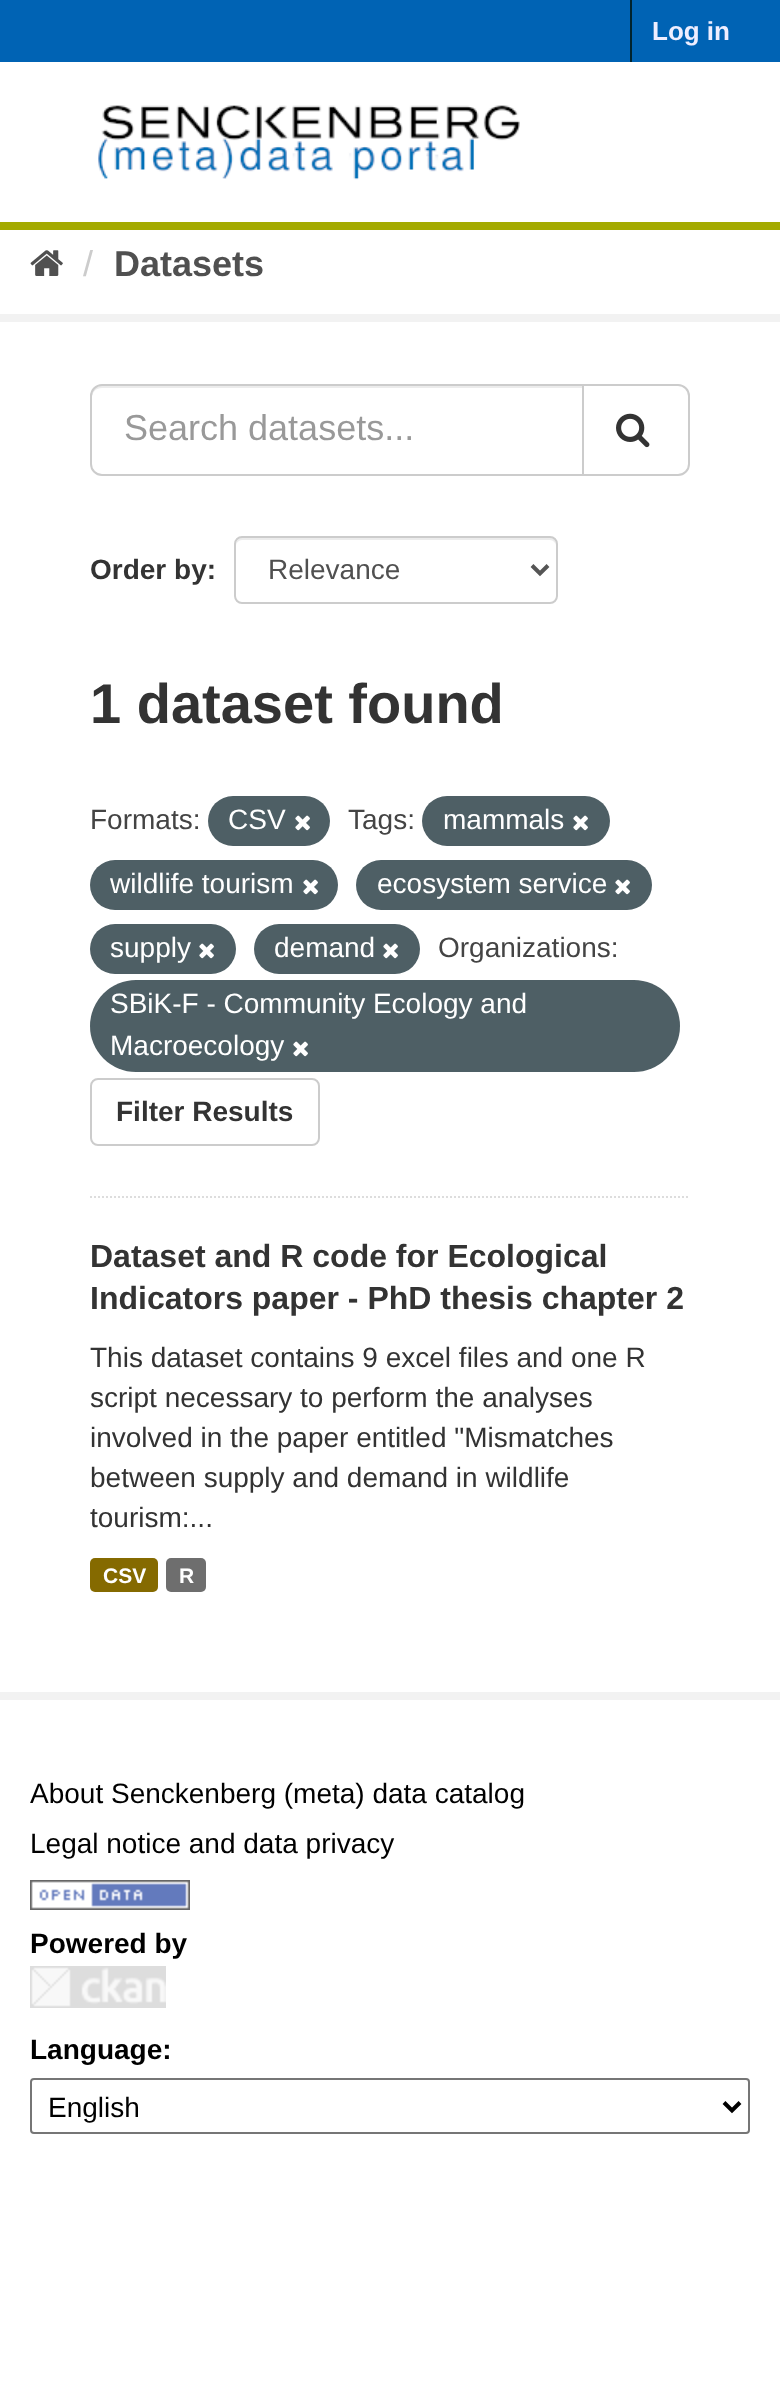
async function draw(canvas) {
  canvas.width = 780;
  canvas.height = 2394;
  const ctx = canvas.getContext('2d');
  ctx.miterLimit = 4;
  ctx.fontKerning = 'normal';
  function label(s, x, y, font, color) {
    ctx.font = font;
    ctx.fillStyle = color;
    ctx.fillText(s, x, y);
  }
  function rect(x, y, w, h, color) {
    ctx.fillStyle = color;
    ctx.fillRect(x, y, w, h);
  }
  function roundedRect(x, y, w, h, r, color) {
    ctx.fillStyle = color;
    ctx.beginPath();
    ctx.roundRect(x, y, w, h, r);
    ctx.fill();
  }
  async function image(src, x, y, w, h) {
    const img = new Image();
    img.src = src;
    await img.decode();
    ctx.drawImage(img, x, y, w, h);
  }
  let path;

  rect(0, 0, 780, 2394, '#fff');
  rect(0, 0, 780, 62, '#0063b4');
  rect(630, 0, 2, 62, '#00232e');
  label('Log in', 652, 40, 'bold 26px Liberation Sans', '#eef');
  rect(0, 222, 780, 8, '#a4aa00');
  await image('assets/img1.png', 98, 105, 422, 75);
  await image('assets/img2.png', 30, 250, 33, 26);
  label('/', 83, 276, '36px Liberation Sans', '#ccc');
  label('Datasets', 114, 276, 'bold 36px Liberation Sans', '#505050');
  ctx.strokeStyle = '#f2f2f2';
  ctx.lineWidth = 8;
  ctx.strokeRect(-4, 318, 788, 1378);
  path = new Path2D('M90 1197H690');
  ctx.strokeStyle = '#ddd';
  ctx.lineWidth = 2;
  ctx.setLineDash([2, 2]);
  ctx.stroke(path);
  ctx.fillStyle = '#ececec';
  path = new Path2D('M102 388H582V386H102C96 386 92 390 92 396V398C92 392 96 388 102 388Z');
  ctx.fill(path);
  ctx.beginPath();
  ctx.roundRect(91, 385, 492, 90, [11, 0, 0, 11]);
  ctx.strokeStyle = '#ccc';
  ctx.setLineDash([]);
  ctx.stroke();
  label('Search datasets...', 124, 440, '36px Liberation Sans', '#999');
  ctx.fillStyle = '#fff';
  ctx.beginPath();
  ctx.roundRect(583, 385, 106, 90, [0, 11, 11, 0]);
  ctx.fill();
  ctx.stroke();
  await image('assets/img3.png', 616, 413, 34, 35);
  label('Order by:', 90, 579, 'bold 28px Liberation Sans', '#333');
  ctx.fillStyle = '#ececec';
  path = new Path2D('M242 540H550C553 540 556 543 556 546C556 542 555 538 550 538H241C237 539 236 543 236 546C236 543 239 540 242 540Z');
  ctx.fill(path);
  ctx.beginPath();
  ctx.roundRect(235, 537, 322, 66, 7);
  ctx.stroke();
  path = new Path2D('M532 565.5L540 573.5L548 565.5');
  ctx.strokeStyle = '#555';
  ctx.lineWidth = 4;
  ctx.stroke(path);
  label('Relevance', 268, 579, '28px Liberation Sans', '#505050');
  label('1 dataset found', 90, 723, 'bold 56px Liberation Sans', '#333');
  label('Formats:', 90, 829, '28px Liberation Sans', '#444');
  roundedRect(208, 796, 122, 50, 25, '#4e5f65');
  label('CSV', 228, 829, '28px Liberation Sans', '#fff');
  await image('assets/img4.png', 295, 815, 15, 16);
  label('Tags:', 348, 829, '28px Liberation Sans', '#444');
  roundedRect(422, 796, 188, 50, 25, '#4e5f65');
  label('mammals', 443, 829, '28px Liberation Sans', '#fff');
  await image('assets/img4.png', 573, 815, 15, 16);
  roundedRect(90, 860, 248, 50, 25, '#4e5f65');
  label('wildlife tourism', 110, 893, '28px Liberation Sans', '#fff');
  await image('assets/img4.png', 303, 879, 15, 16);
  roundedRect(356, 860, 296, 50, 25, '#4e5f65');
  label('ecosystem service', 377, 893, '28px Liberation Sans', '#fff');
  await image('assets/img4.png', 615, 879, 15, 16);
  roundedRect(90, 924, 146, 50, 25, '#4e5f65');
  label('supply', 110, 957, '28px Liberation Sans', '#fff');
  await image('assets/img4.png', 199, 943, 15, 16);
  roundedRect(254, 924, 166, 50, 25, '#4e5f65');
  label('demand', 274, 957, '28px Liberation Sans', '#fff');
  await image('assets/img4.png', 383, 943, 15, 16);
  label('Organizations:', 438, 957, '28px Liberation Sans', '#444');
  roundedRect(90, 980, 590, 92, 46, '#4e5f65');
  label('SBiK-F - Community Ecology and', 110, 1013, '28px Liberation Sans', '#fff');
  label('Macroecology', 110, 1055, '28px Liberation Sans', '#fff');
  await image('assets/img4.png', 293, 1041, 15, 16);
  ctx.beginPath();
  ctx.roundRect(91, 1079, 228, 66, 7);
  ctx.strokeStyle = '#ccc';
  ctx.lineWidth = 2;
  ctx.stroke();
  label('Filter Results', 116, 1121, 'bold 28px Liberation Sans', '#333');
  label('Dataset and R code for Ecological', 90, 1267, 'bold 32px Liberation Sans', '#333');
  label('Indicators paper - PhD thesis chapter 2', 90, 1309, 'bold 32px Liberation Sans', '#333');
  label('This dataset contains 9 excel files and one R', 90, 1367, '28px Liberation Sans', '#333');
  label('script necessary to perform the analyses', 90, 1407, '28px Liberation Sans', '#333');
  label('involved in the paper entitled "Mismatches', 90, 1447, '28px Liberation Sans', '#333');
  label('between supply and demand in wildlife', 90, 1487, '28px Liberation Sans', '#333');
  label('tourism:...', 90, 1527, '28px Liberation Sans', '#333');
  roundedRect(90, 1558, 68, 34, 5, '#856a00');
  label('CSV', 103, 1583, 'bold 21px Liberation Sans', '#fff');
  roundedRect(166, 1558, 40, 34, 5, '#6e6e6e');
  label('R', 179, 1583, 'bold 21px Liberation Sans', '#fff');
  label('About Senckenberg (meta) data catalog', 30, 1803, '28px Liberation Sans', '#000');
  label('Legal notice and data privacy', 30, 1853, '28px Liberation Sans', '#000');
  await image('assets/img5.png', 30, 1880, 160, 30);
  label('Powered by', 30, 1953, 'bold 28px Liberation Sans', '#000');
  rect(30, 1966, 136, 42, '#ddd');
  await image('assets/img6.png', 31, 1967, 135, 40);
  label('Language:', 30, 2059, 'bold 28px Liberation Sans', '#000');
  ctx.beginPath();
  ctx.roundRect(31, 2079, 718, 54, 3);
  ctx.strokeStyle = '#767676';
  ctx.stroke();
  path = new Path2D('M724 2102.5L732 2110.5L740 2102.5');
  ctx.strokeStyle = '#000';
  ctx.lineWidth = 4;
  ctx.stroke(path);
  label('English', 48, 2117, '28px Liberation Sans', '#000');
}

draw(document.querySelector('canvas'));
